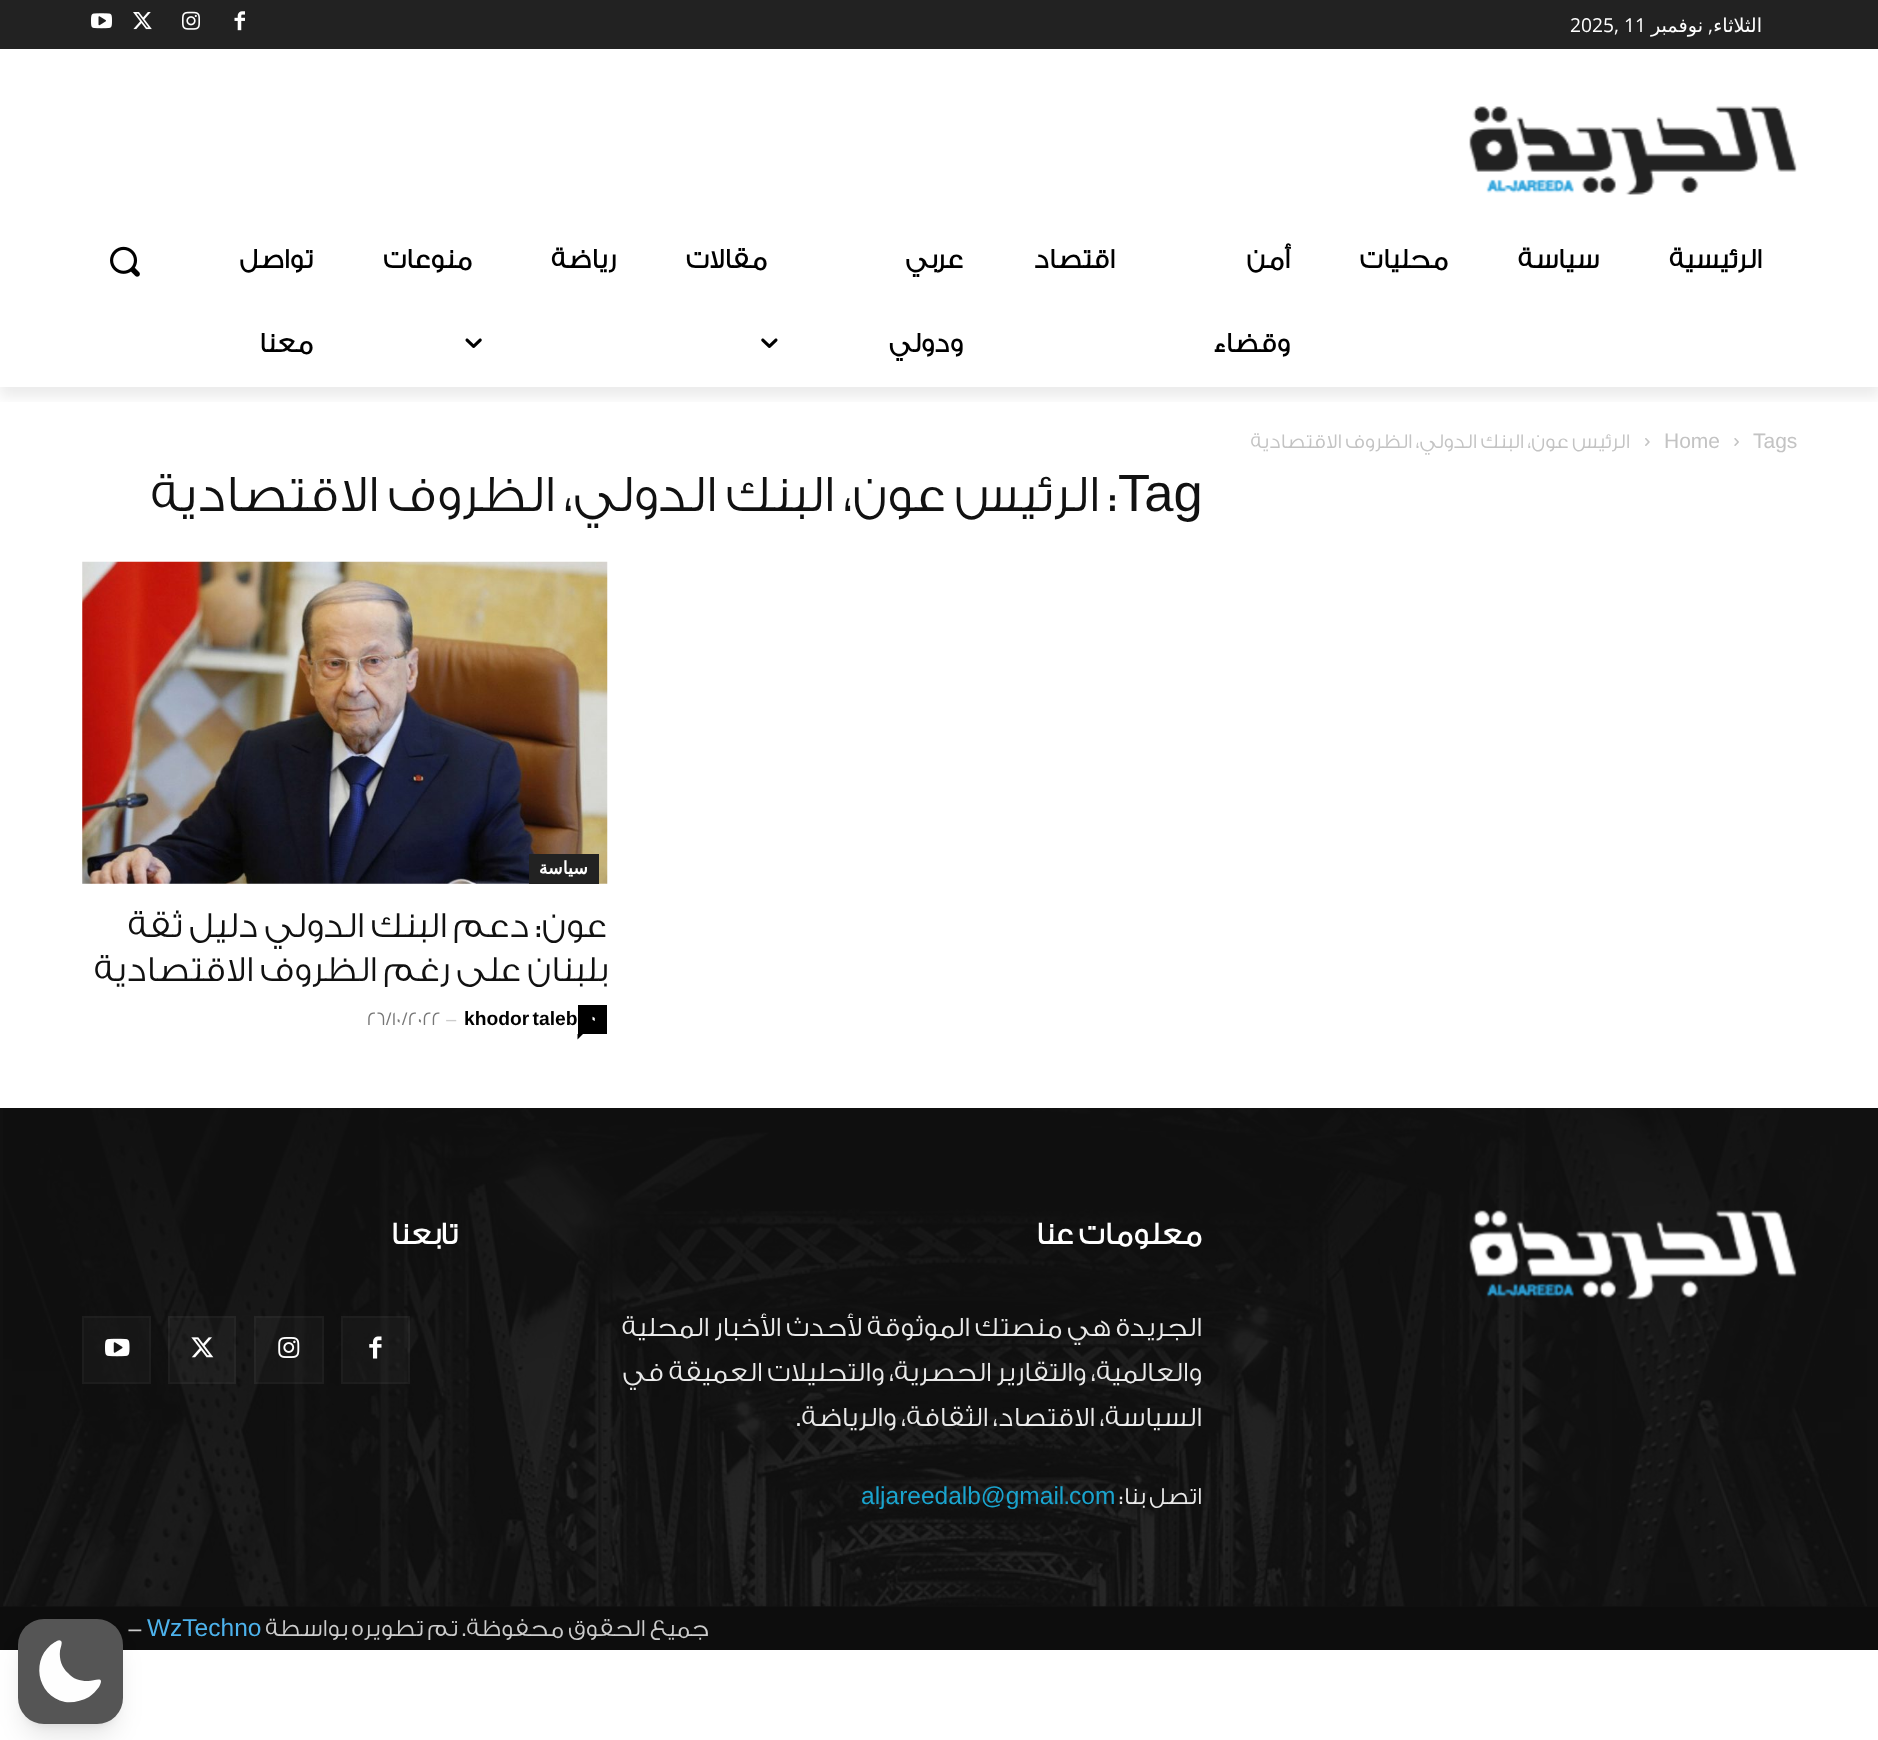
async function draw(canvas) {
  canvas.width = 1878;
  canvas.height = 1740;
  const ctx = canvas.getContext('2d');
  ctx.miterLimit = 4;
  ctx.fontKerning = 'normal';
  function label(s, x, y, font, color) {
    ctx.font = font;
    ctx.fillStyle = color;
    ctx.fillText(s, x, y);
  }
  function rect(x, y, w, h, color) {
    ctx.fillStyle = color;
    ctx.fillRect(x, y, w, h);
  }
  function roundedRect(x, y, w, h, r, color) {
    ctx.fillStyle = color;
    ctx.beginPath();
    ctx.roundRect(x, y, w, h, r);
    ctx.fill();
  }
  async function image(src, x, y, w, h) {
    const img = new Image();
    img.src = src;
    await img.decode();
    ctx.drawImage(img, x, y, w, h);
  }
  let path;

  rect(0, 0, 1878, 1740, '#fff');
  rect(0, 0, 1878, 49, '#222');
  await image('assets/img1.png', 234, 11, 11, 20);
  await image('assets/img2.png', 182, 11, 18, 19);
  await image('assets/img3.png', 133, 12, 19, 18);
  await image('assets/img4.png', 91, 13, 21, 16);
  await image('assets/img5.png', 1469, 106, 328, 89);
  ctx.save();
  ctx.beginPath();
  ctx.rect(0, 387, 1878, 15);
  ctx.clip();
  ctx.fillStyle = '#00000014';
  ctx.filter = 'blur(7px)';
  ctx.beginPath();
  ctx.rect(0, 11, 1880, 386);
  ctx.fill();
  ctx.filter = 'none';
  ctx.restore();
  ctx.direction = 'rtl';
  label('الثلاثاء', 1762, 32, '19.25px DejaVu Sans', '#fff');
  label(',', 1713, 32, '19.25px Open Sans', '#fff');
  label('نوفمبر', 1703, 32, '19.25px DejaVu Sans', '#fff');
  ctx.direction = 'ltr';
  label('2025, 11', 1570, 32, '19.25px Open Sans', '#fff');
  ctx.direction = 'rtl';
  label('الرئيسية', 1762, 268, 'bold 28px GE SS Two', '#000');
  label('سياسة', 1599, 268, 'bold 28px GE SS Two', '#000');
  label('محليات', 1448, 268, 'bold 28px GE SS Two', '#000');
  label('أمن', 1290, 268, 'bold 28px GE SS Two', '#000');
  label('وقضاء', 1290, 352, 'bold 28px GE SS Two', '#000');
  label('اقتصاد', 1115, 268, 'bold 28px GE SS Two', '#000');
  label('عربي', 963, 268, 'bold 28px GE SS Two', '#000');
  label('ودولي', 963, 352, 'bold 28px GE SS Two', '#000');
  label('مقالات', 767, 268, 'bold 28px GE SS Two', '#000');
  await image('assets/img6.png', 761, 338, 17, 10);
  label('رياضة', 616, 268, 'bold 28px GE SS Two', '#000');
  label('منوعات', 472, 268, 'bold 28px GE SS Two', '#000');
  await image('assets/img7.png', 465, 338, 17, 10);
  label('تواصل', 313, 268, 'bold 28px GE SS Two', '#000');
  label('معنا', 313, 352, 'bold 28px GE SS Two', '#000');
  await image('assets/img8.png', 110, 246, 30, 31);
  ctx.direction = 'ltr';
  label('Tags', 1753, 448, '21px Liberation Sans', '#c3c3c3');
  await image('assets/img9.png', 1734, 438, 5, 8);
  label('Home', 1664, 448, '21px Liberation Sans', '#c3c3c3');
  await image('assets/img10.png', 1645, 438, 5, 8);
  ctx.direction = 'rtl';
  label('الرئيس عون، البنك الدولي، الظروف الاقتصادية', 1630, 448, '300 21px GE SS Two', '#c3c3c3');
  ctx.direction = 'ltr';
  label('Tag', 1118, 511, '52.5px Liberation Sans', '#111');
  ctx.direction = 'rtl';
  label(': الرئيس عون، البنك الدولي، الظروف الاقتصادية', 1118, 511, '300 52.5px GE SS Two', '#111');
  await image('assets/img11.png', 82, 561, 526, 323);
  rect(529, 854, 70, 30, '#222');
  label('سياسة', 588, 874, 'bold 17.5px DejaVu Sans', '#fff');
  label('عون: دعم البنك الدولي دليل ثقة', 607, 937, '300 36.75px GE SS Two', '#111');
  label('بلبنان على رغم الظروف الاقتصادية', 607, 981, '300 36.75px GE SS Two', '#111');
  rect(578, 1005, 29, 29, '#000');
  ctx.direction = 'ltr';
  label('0', 591, 1023, 'bold 17.5px GE SS Two', '#fff');
  ctx.fillStyle = '#000';
  path = new Path2D('M577.5 1034H583L577.5 1039.5Z');
  ctx.fill(path);
  ctx.wordSpacing = '-2px';
  label('khodor taleb', 464, 1025, 'bold 19.25px Liberation Sans', '#000');
  ctx.wordSpacing = '0px';
  label('-', 445, 1025, '300 19.25px GE SS Two', '#ccc');
  label('26/10/2022', 367, 1025, '300 19.25px GE SS Two', '#767676');
  rect(0, 1108, 1878, 499, '#111');
  await image('assets/img12.png', 3, 1108, 1864, 499);
  await image('assets/img13.png', 1469, 1210, 328, 90);
  ctx.direction = 'rtl';
  label('معلومات عنا', 1202, 1244, 'bold 31.5px GE SS Two', '#fff');
  label('الجريدة هي منصتك الموثوقة لأحدث الأخبار المحلية', 1202, 1336, '300 28px GE SS Two', '#eaeaea');
  label('والعالمية، والتقارير الحصرية، والتحليلات العميقة في', 1202, 1381, '300 28px GE SS Two', '#eaeaea');
  label('السياسة، الاقتصاد، الثقافة، والرياضة.', 1202, 1426, '300 28px GE SS Two', '#eaeaea');
  label('اتصل بنا:', 1202, 1504, '300 24.5px GE SS Two', '#eaeaea');
  ctx.direction = 'ltr';
  label('com', 1069, 1504, '24.5px Liberation Sans', '#1aa4ce');
  label('.', 1065, 1504, '300 24.5px GE SS Two', '#1aa4ce');
  label('aljareedalb@gmail', 861, 1504, '24.5px Liberation Sans', '#1aa4ce');
  ctx.direction = 'rtl';
  label('تابعنا', 458, 1244, 'bold 31.5px GE SS Two', '#fff');
  rect(341, 1316, 69, 68, '#ffffff08');
  ctx.strokeStyle = '#ffffff08';
  ctx.lineWidth = 2;
  ctx.strokeRect(342, 1317, 67, 66);
  await image('assets/img14.png', 369, 1336, 13, 23);
  rect(254, 1316, 70, 68, '#ffffff08');
  ctx.strokeRect(255, 1317, 68, 66);
  await image('assets/img15.png', 278, 1337, 22, 21);
  rect(168, 1316, 68, 68, '#ffffff08');
  ctx.strokeRect(169, 1317, 66, 66);
  await image('assets/img16.png', 191, 1337, 23, 21);
  rect(82, 1316, 69, 68, '#ffffff08');
  ctx.strokeRect(83, 1317, 67, 66);
  await image('assets/img17.png', 105, 1338, 25, 19);
  rect(0, 1607, 1878, 43, '#0d0d0d');
  label('جميع الحقوق محفوظة. تم تطويره بواسطة', 709, 1636, '300 24.5px GE SS Two', '#ccc');
  ctx.direction = 'ltr';
  label('WzTechno', 147, 1636, '24.5px Liberation Sans', '#4db2ec');
  label('-', 127, 1636, '300 24.5px GE SS Two', '#ccc');
  ctx.fillStyle = '#0000001a';
  ctx.filter = 'blur(5px)';
  ctx.beginPath();
  ctx.roundRect(25, 1633, 91, 91, 19);
  ctx.fill();
  ctx.filter = 'none';
  ctx.filter = 'blur(13px)';
  ctx.beginPath();
  ctx.roundRect(23, 1642, 94, 94, 21);
  ctx.fill();
  ctx.filter = 'none';
  roundedRect(18, 1619, 105, 105, 26, '#555');
  ctx.fillStyle = '#fefefe';
  path = new Path2D('M61 1641C63 1642 60 1649 60 1651C59 1659 62 1668 68 1673C73 1679 80 1681 87 1681C93 1682 106 1674 99 1687C96 1691 93 1694 89 1697C82 1701 73 1703 65 1702C36 1696 30 1657 55 1642C56 1642 59 1639 61 1641Z');
  ctx.fill(path, 'evenodd');
}

draw(document.querySelector('canvas'));
